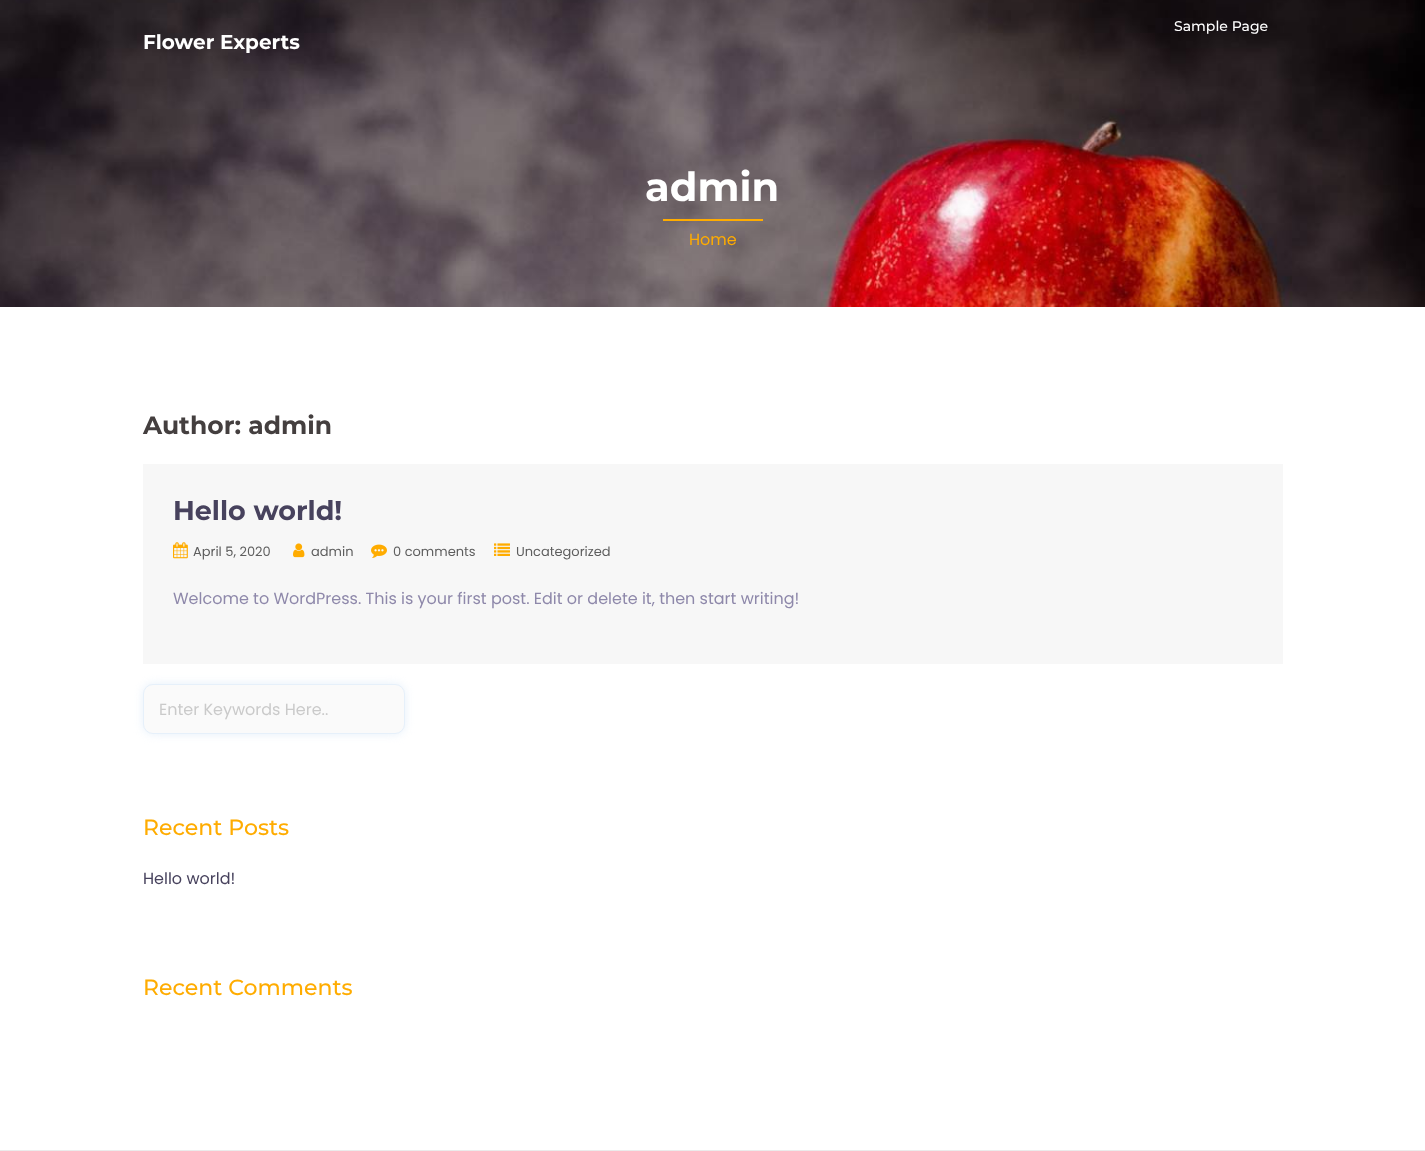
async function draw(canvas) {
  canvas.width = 1425;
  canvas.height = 1151;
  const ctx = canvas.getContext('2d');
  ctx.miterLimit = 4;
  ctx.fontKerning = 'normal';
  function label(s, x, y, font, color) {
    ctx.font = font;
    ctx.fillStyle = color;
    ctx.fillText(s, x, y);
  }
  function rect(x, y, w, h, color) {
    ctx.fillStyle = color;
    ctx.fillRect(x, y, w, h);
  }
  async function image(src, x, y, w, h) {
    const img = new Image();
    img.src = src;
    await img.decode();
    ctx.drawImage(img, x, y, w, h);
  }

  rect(0, 0, 1425, 1151, '#fff');
  await image('assets/img1.png', 0, 0, 1425, 307);
  label('Sample Page', 1174, 31, '500 14px Montserrat', '#fff');
  label('Flower Experts', 143, 49, 'bold 20px Montserrat', '#fff');
  label('admin', 645, 201, 'bold 40px Montserrat', '#fff');
  rect(663, 219, 100, 2, '#ffac00');
  label('Home', 689, 245, '16px Poppins', '#ffac00');
  label('Author: admin', 143, 434, 'bold 25px Montserrat', '#443f3f');
  rect(143, 464, 1140, 200, '#f7f7f7');
  label('Hello world!', 173, 520, 'bold 27px Montserrat', '#47425d');
  await image('assets/img2.png', 173, 542, 15, 17);
  label('April 5, 2020', 193, 556, '13px Poppins', '#5e5e5e');
  await image('assets/img3.png', 293, 543, 12, 15);
  label('admin', 311, 556, '13px Poppins', '#5e5e5e');
  await image('assets/img4.png', 371, 544, 16, 14);
  label('0 comments', 393, 556, '13px Poppins', '#5e5e5e');
  await image('assets/img5.png', 494, 543, 16, 13);
  label('Uncategorized', 516, 556, '13px Poppins', '#5e5e5e');
  label('Welcome to WordPress. This is your first post. Edit or delete it, then start writing!', 173, 604, '16px Poppins', '#8e88aa');
  ctx.fillStyle = '#e6f0fa';
  ctx.filter = 'blur(5px)';
  ctx.beginPath();
  ctx.roundRect(143, 684, 262, 50, 10);
  ctx.fill();
  ctx.filter = 'none';
  ctx.fillStyle = '#fafafa';
  ctx.beginPath();
  ctx.roundRect(143.5, 684.5, 261, 49, 9.5);
  ctx.fill();
  ctx.strokeStyle = '#e6f0fa';
  ctx.stroke();
  label('Enter Keywords Here..', 159, 715, '16px Poppins', '#cacaca');
  label('Recent Posts', 143, 835, '500 22px Montserrat', '#ffac00');
  label('Hello world!', 143, 884, '16px Poppins', '#47425d');
  label('Recent Comments', 143, 995, '500 22px Montserrat', '#ffac00');
  rect(0, 1150, 1425, 1, '#ebebeb');
}

draw(document.querySelector('canvas'));
